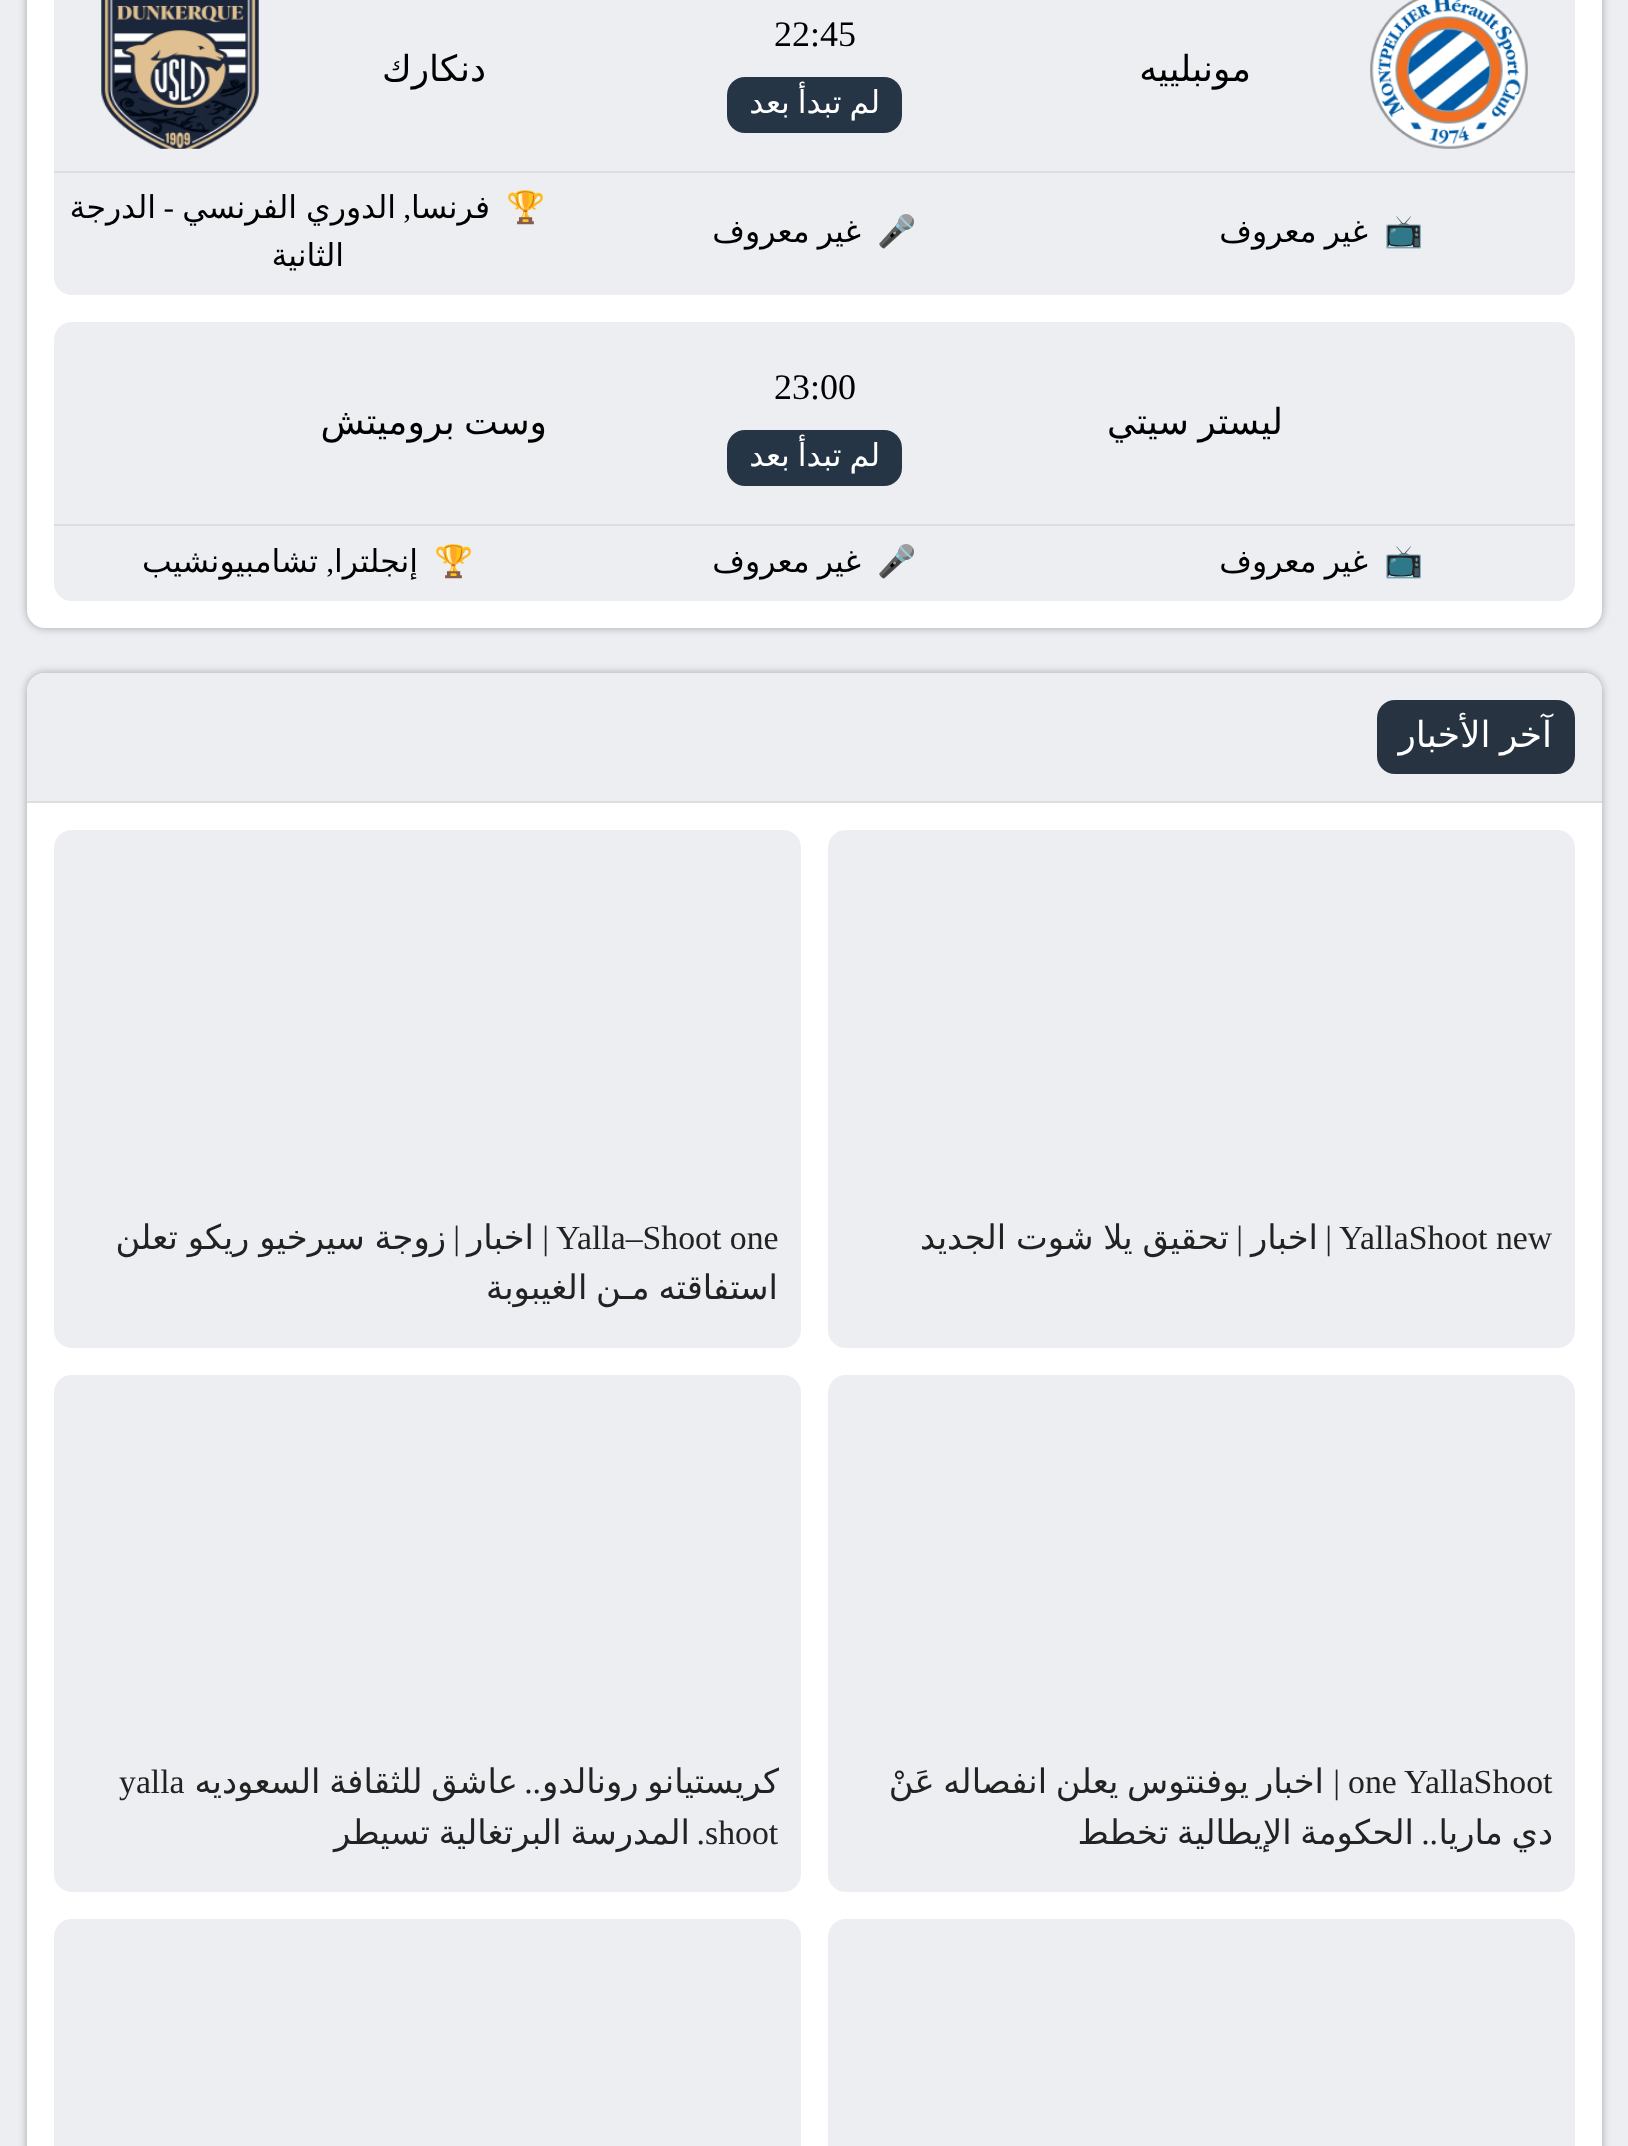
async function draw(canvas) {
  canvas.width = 1628;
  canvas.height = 2146;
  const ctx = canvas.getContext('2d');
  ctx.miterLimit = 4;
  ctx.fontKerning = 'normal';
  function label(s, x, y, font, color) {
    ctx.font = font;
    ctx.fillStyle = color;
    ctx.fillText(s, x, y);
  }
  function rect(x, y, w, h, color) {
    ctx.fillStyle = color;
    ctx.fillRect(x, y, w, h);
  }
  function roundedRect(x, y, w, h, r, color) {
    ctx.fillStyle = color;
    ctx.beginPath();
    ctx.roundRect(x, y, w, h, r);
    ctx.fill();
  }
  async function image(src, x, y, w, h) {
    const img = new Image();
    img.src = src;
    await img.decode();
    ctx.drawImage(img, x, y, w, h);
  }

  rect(0, 0, 1628, 2146, '#eceef2');
  ctx.fillStyle = '#0000004d';
  ctx.filter = 'blur(4.5px)';
  ctx.beginPath();
  ctx.roundRect(27, -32, 1575, 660, 18);
  ctx.fill();
  ctx.filter = 'none';
  roundedRect(27, -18, 1575, 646, 18, '#fff');
  roundedRect(54, -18, 1521, 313, 18, '#eceef2');
  await image('assets/img1.png', 1370, 0, 158, 149);
  ctx.direction = 'rtl';
  label('مونبلييه', 1251, 81, '36px DejaVu Sans', '#000');
  ctx.direction = 'ltr';
  label('22:45', 774, 46, '36px Liberation Serif', '#000');
  roundedRect(727, 77, 175, 56, 18, '#263545');
  ctx.wordSpacing = '-2px';
  ctx.direction = 'rtl';
  label('لم تبدأ بعد', 880, 113, '31.5px DejaVu Sans', '#fff');
  ctx.wordSpacing = '0px';
  label('دنكارك', 486, 81, '36px DejaVu Sans', '#000');
  await image('assets/img2.png', 101, 0, 158, 149);
  rect(54, 171, 1521, 2, '#ddd');
  ctx.direction = 'ltr';
  label('📺', 1384, 242, '31.5px Noto Color Emoji', '#000');
  ctx.wordSpacing = '-2px';
  ctx.direction = 'rtl';
  label('غير معروف', 1368, 242, '31.5px DejaVu Sans', '#000');
  ctx.wordSpacing = '0px';
  ctx.direction = 'ltr';
  label('🎤', 877, 242, '31.5px Noto Color Emoji', '#000');
  ctx.wordSpacing = '-2px';
  ctx.direction = 'rtl';
  label('غير معروف', 861, 242, '31.5px DejaVu Sans', '#000');
  ctx.wordSpacing = '0px';
  ctx.direction = 'ltr';
  label('🏆', 506, 218, '31.5px Noto Color Emoji', '#000');
  ctx.direction = 'rtl';
  label('فرنسا', 490, 218, '31.5px DejaVu Sans', '#000');
  ctx.wordSpacing = '-1px';
  label('الدوري الفرنسي', 396, 218, '31.5px DejaVu Sans', '#000');
  ctx.wordSpacing = '0px';
  label('-', 174, 218, '31.5px Liberation Serif', '#000');
  label('الدرجة', 156, 218, '31.5px DejaVu Sans', '#000');
  label(',', 411, 218, '31.5px Liberation Serif', '#000');
  label('الثانية', 344, 266, '31.5px DejaVu Sans', '#000');
  roundedRect(54, 322, 1521, 279, 18, '#eceef2');
  ctx.wordSpacing = '-2px';
  label('ليستر سيتي', 1283, 434, '36px DejaVu Sans', '#000');
  ctx.wordSpacing = '0px';
  ctx.direction = 'ltr';
  label('23:00', 774, 399, '36px Liberation Serif', '#000');
  roundedRect(727, 430, 175, 56, 18, '#263545');
  ctx.wordSpacing = '-2px';
  ctx.direction = 'rtl';
  label('لم تبدأ بعد', 880, 466, '31.5px DejaVu Sans', '#fff');
  label('وست بروميتش', 547, 434, '36px DejaVu Sans', '#000');
  rect(54, 524, 1521, 2, '#ddd');
  ctx.wordSpacing = '0px';
  ctx.direction = 'ltr';
  label('📺', 1384, 572, '31.5px Noto Color Emoji', '#000');
  ctx.wordSpacing = '-2px';
  ctx.direction = 'rtl';
  label('غير معروف', 1368, 572, '31.5px DejaVu Sans', '#000');
  ctx.wordSpacing = '0px';
  ctx.direction = 'ltr';
  label('🎤', 877, 572, '31.5px Noto Color Emoji', '#000');
  ctx.wordSpacing = '-2px';
  ctx.direction = 'rtl';
  label('غير معروف', 861, 572, '31.5px DejaVu Sans', '#000');
  ctx.wordSpacing = '0px';
  ctx.direction = 'ltr';
  label('🏆', 434, 572, '31.5px Noto Color Emoji', '#000');
  ctx.direction = 'rtl';
  label('إنجلترا', 418, 572, '31.5px DejaVu Sans', '#000');
  label(',', 334, 572, '31.5px Liberation Serif', '#000');
  label('تشامبيونشيب', 318, 572, '31.5px DejaVu Sans', '#000');
  ctx.fillStyle = '#0000004d';
  ctx.filter = 'blur(4.5px)';
  ctx.beginPath();
  ctx.roundRect(27, 673, 1575, 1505, 18);
  ctx.fill();
  ctx.filter = 'none';
  roundedRect(27, 673, 1575, 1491, 18, '#fff');
  ctx.fillStyle = '#eceef2';
  ctx.beginPath();
  ctx.roundRect(27, 673, 1575, 130, [18, 18, 0, 0]);
  ctx.fill();
  rect(27, 801, 1575, 2, '#ddd');
  roundedRect(1377, 700, 198, 74, 18, '#273340');
  ctx.wordSpacing = '-2px';
  label('آخر الأخبار', 1552, 747, '36px DejaVu Sans', '#fff');
  roundedRect(828, 830, 747, 518, 18, '#eceef2');
  ctx.wordSpacing = '0px';
  ctx.direction = 'ltr';
  label('YallaShoot new', 1339, 1249, '33.75px Liberation Serif', '#222');
  ctx.direction = 'rtl';
  label('|', 1332, 1249, '33.75px Liberation Serif', '#222');
  label('اخبار', 1318, 1249, '33.75px DejaVu Sans', '#222');
  label('|', 1243, 1249, '33.75px Liberation Serif', '#222');
  ctx.wordSpacing = '-1px';
  label('تحقيق يلا شوت الجديد', 1229, 1249, '33.75px DejaVu Sans', '#222');
  roundedRect(54, 830, 747, 518, 18, '#eceef2');
  ctx.wordSpacing = '0px';
  ctx.direction = 'ltr';
  label('Yalla–Shoot one', 556, 1249, '33.75px Liberation Serif', '#222');
  ctx.direction = 'rtl';
  label('|', 549, 1249, '33.75px Liberation Serif', '#222');
  label('اخبار', 534, 1249, '33.75px DejaVu Sans', '#222');
  label('|', 460, 1249, '33.75px Liberation Serif', '#222');
  ctx.wordSpacing = '-1px';
  label('زوجة سيرخيو ريكو تعلن', 446, 1249, '33.75px DejaVu Sans', '#222');
  ctx.save();
  ctx.beginPath();
  ctx.rect(77, 1213, 702, 112);
  ctx.clip();
  ctx.wordSpacing = '-2px';
  label('استفاقته مـن الغيبوبة', 778, 1299, '33.75px DejaVu Sans', '#222');
  ctx.restore();
  roundedRect(828, 1375, 747, 517, 18, '#eceef2');
  ctx.wordSpacing = '0px';
  ctx.direction = 'ltr';
  label('one YallaShoot', 1348, 1793, '33.75px Liberation Serif', '#222');
  ctx.direction = 'rtl';
  label('|', 1340, 1793, '33.75px Liberation Serif', '#222');
  label('اخبار', 1324, 1793, '33.75px DejaVu Sans', '#222');
  ctx.wordSpacing = '-2px';
  label('يوفنتوس يعلن انفصاله عَنْ', 1249, 1793, '33.75px DejaVu Sans', '#222');
  label('دي ماريا', 1553, 1844, '33.75px DejaVu Sans', '#222');
  ctx.wordSpacing = '0px';
  label('..', 1438, 1844, '33.75px Liberation Serif', '#222');
  ctx.wordSpacing = '-2px';
  label('الحكومة الإيطالية تخطط', 1414, 1844, '33.75px DejaVu Sans', '#222');
  roundedRect(54, 1375, 747, 517, 18, '#eceef2');
  ctx.wordSpacing = '0px';
  label('..', 541, 1793, '33.75px Liberation Serif', '#222');
  ctx.save();
  ctx.beginPath();
  ctx.rect(77, 1757, 702, 113);
  ctx.clip();
  ctx.wordSpacing = '-2px';
  label('كريستيانو رونالدو', 779, 1793, '33.75px DejaVu Sans', '#222');
  ctx.restore();
  ctx.wordSpacing = '-2px';
  label('عاشق للثقافة السعوديه', 518, 1793, '33.75px DejaVu Sans', '#222');
  ctx.wordSpacing = '0px';
  ctx.direction = 'ltr';
  label('yalla', 119, 1793, '33.75px Liberation Serif', '#222');
  label('shoot', 705, 1844, '33.75px Liberation Serif', '#222');
  ctx.direction = 'rtl';
  label('.', 705, 1844, '33.75px Liberation Serif', '#222');
  ctx.wordSpacing = '-2px';
  label('المدرسة البرتغالية تسيطر', 690, 1844, '33.75px DejaVu Sans', '#222');
  roundedRect(828, 1919, 747, 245, 18, '#eceef2');
  roundedRect(54, 1919, 747, 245, 18, '#eceef2');
}

draw(document.querySelector('canvas'));
